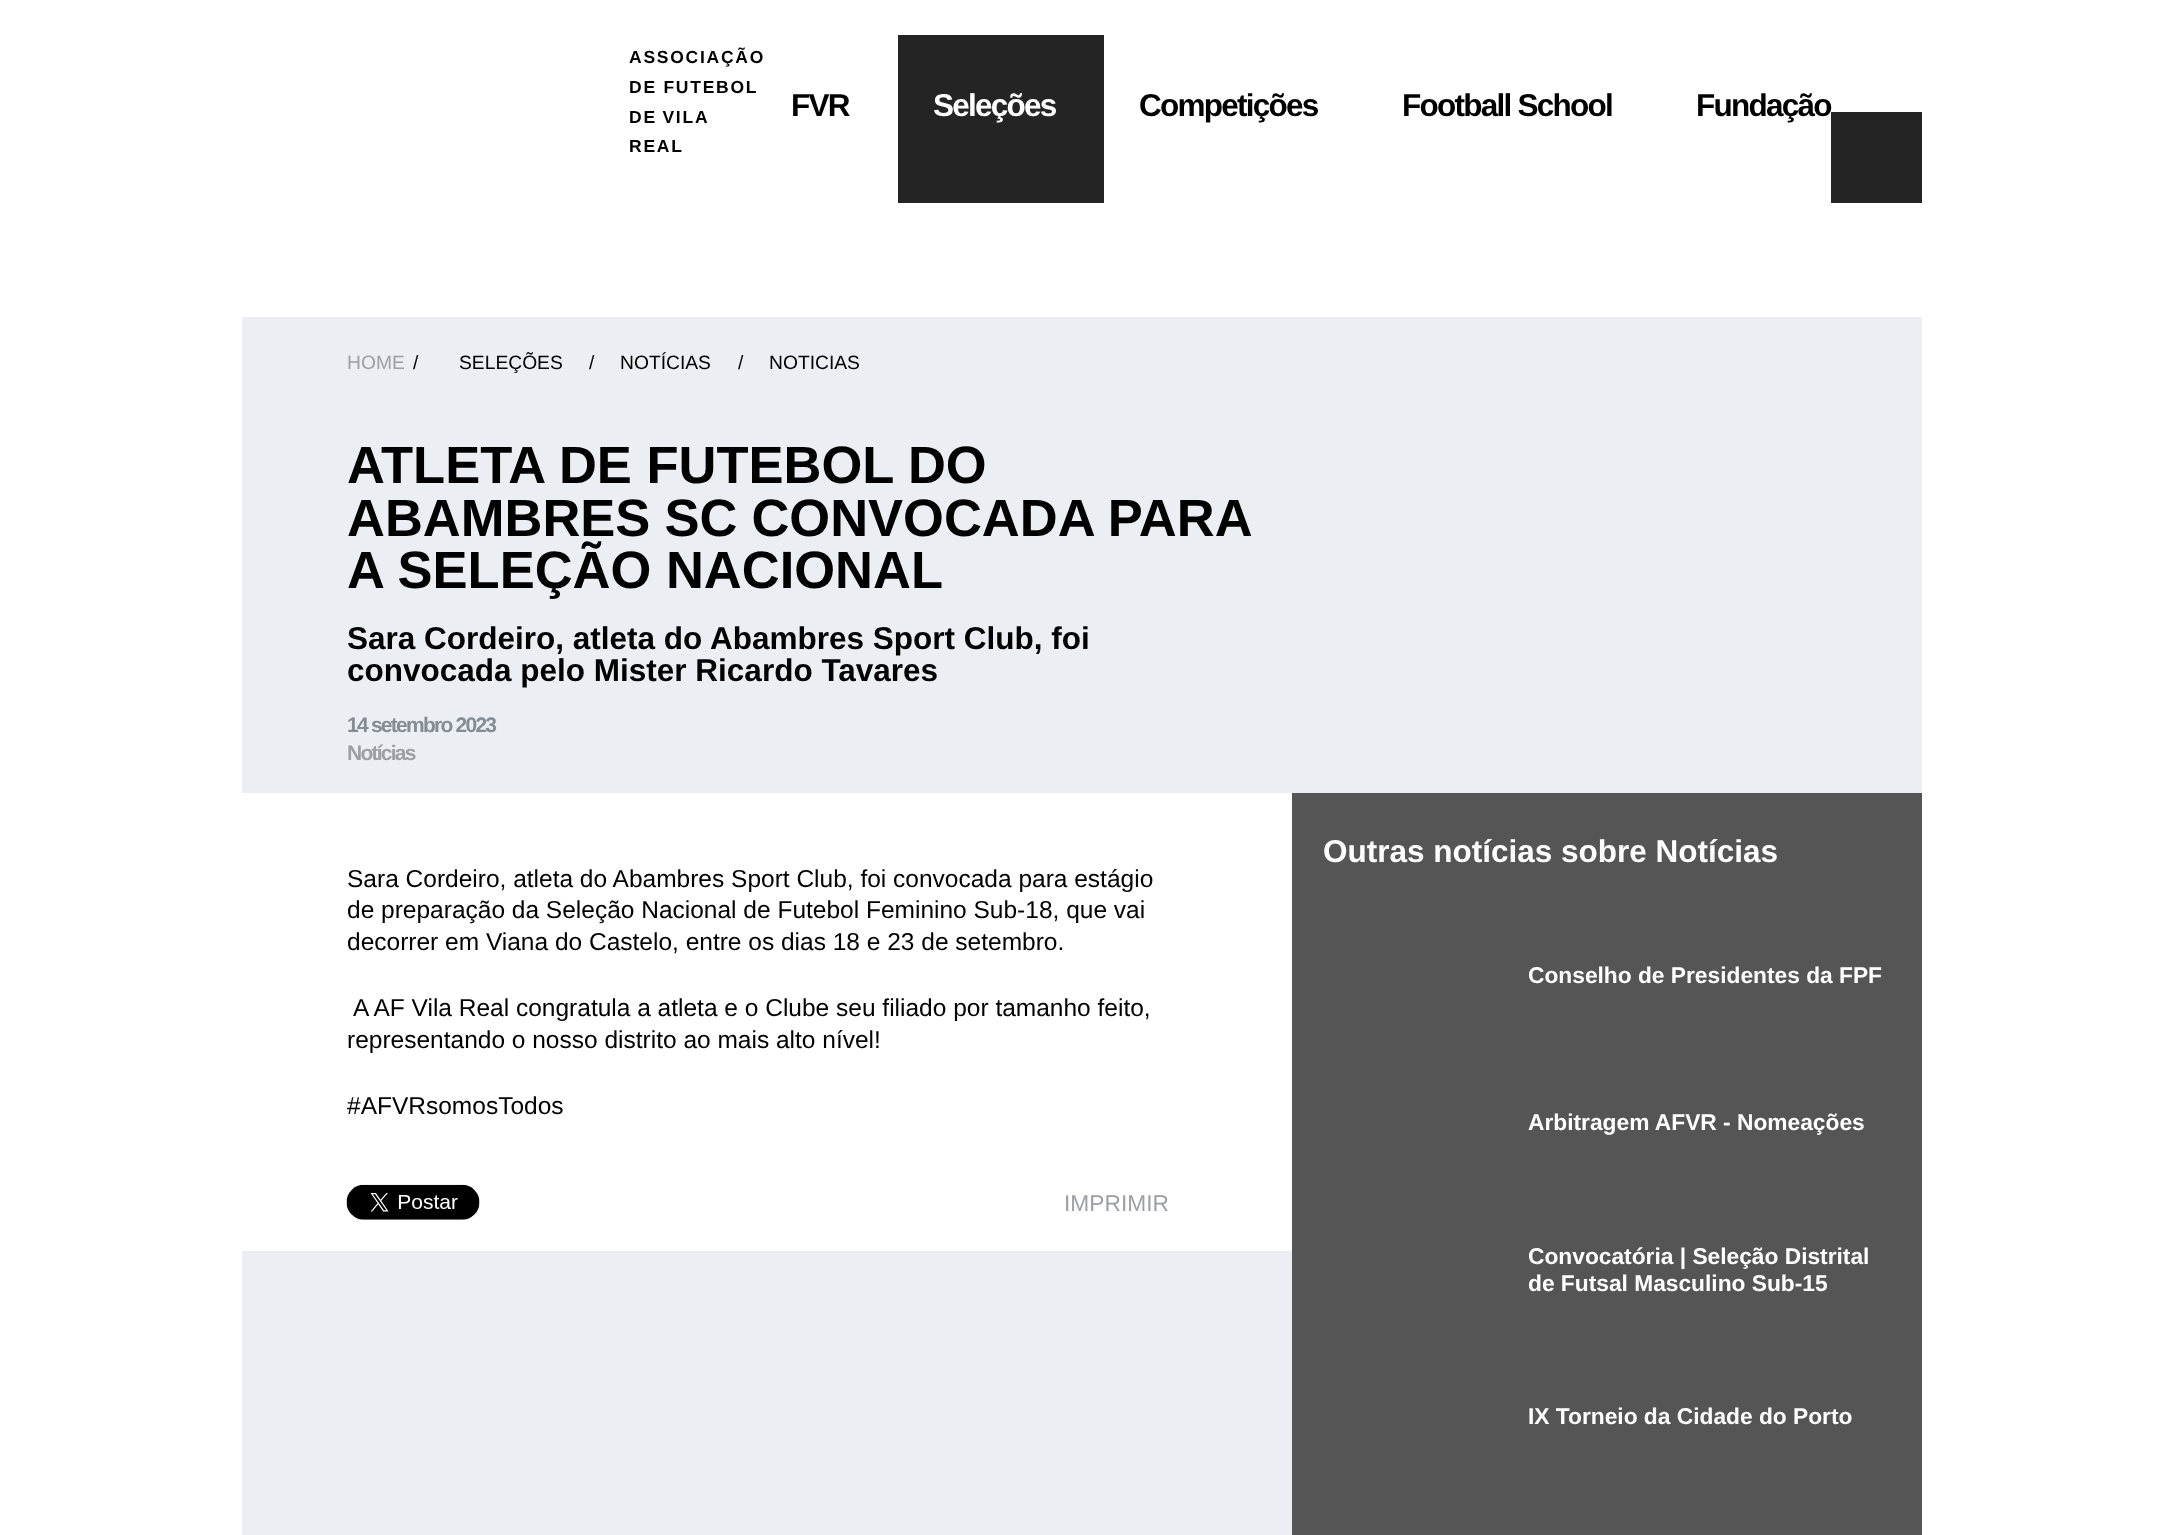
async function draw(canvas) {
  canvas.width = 2163;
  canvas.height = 1535;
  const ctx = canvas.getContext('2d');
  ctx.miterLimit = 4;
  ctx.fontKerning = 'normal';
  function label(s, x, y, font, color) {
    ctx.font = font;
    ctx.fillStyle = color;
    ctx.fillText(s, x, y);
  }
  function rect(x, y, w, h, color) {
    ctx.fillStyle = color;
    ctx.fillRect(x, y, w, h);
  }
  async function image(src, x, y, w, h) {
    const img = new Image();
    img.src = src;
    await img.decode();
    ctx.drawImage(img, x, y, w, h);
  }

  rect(0, 0, 2163, 1535, '#fff');
  ctx.letterSpacing = '1.75px';
  label('ASSOCIAÇÃO', 629, 63, 'bold 17.5px Liberation Sans', '#000');
  label('DE FUTEBOL', 629, 93, 'bold 17.5px Liberation Sans', '#000');
  ctx.wordSpacing = '-1px';
  label('DE VILA', 629, 123, 'bold 17.5px Liberation Sans', '#000');
  ctx.wordSpacing = '0px';
  label('REAL', 629, 152, 'bold 17.5px Liberation Sans', '#000');
  ctx.letterSpacing = '-1.75px';
  label('FVR', 791, 116, 'bold 31.5px Liberation Sans', '#000');
  rect(898, 35, 206, 168, '#242425');
  label('Seleções', 933, 116, 'bold 31.5px Liberation Sans', '#fff');
  label('Competições', 1139, 116, 'bold 31.5px Liberation Sans', '#000');
  label('Football School', 1402, 116, 'bold 31.5px Liberation Sans', '#000');
  label('Fundação', 1696, 116, 'bold 31.5px Liberation Sans', '#000');
  rect(1831, 112, 91, 91, '#242425');
  rect(242, 317, 1680, 1218, '#ebeef3');
  ctx.letterSpacing = '0px';
  label('HOME', 347, 369, '19.25px Liberation Sans', '#9e9fa4');
  label('/', 413, 369, '19.25px Liberation Sans', '#000');
  label('SELEÇÕES', 459, 369, '19.25px Liberation Sans', '#000');
  label('/', 589, 369, '19.25px Liberation Sans', '#000');
  label('NOTÍCIAS', 620, 369, '19.25px Liberation Sans', '#000');
  label('/', 738, 369, '19.25px Liberation Sans', '#000');
  label('NOTICIAS', 769, 369, '19.25px Liberation Sans', '#000');
  rect(242, 793, 1050, 458, '#fff');
  label('ATLETA DE FUTEBOL DO', 347, 483, 'bold 52.5px Liberation Sans', '#000');
  ctx.wordSpacing = '-0.5px';
  label('ABAMBRES SC CONVOCADA PARA', 347, 536, 'bold 52.5px Liberation Sans', '#000');
  ctx.wordSpacing = '0px';
  label('A SELEÇÃO NACIONAL', 347, 588, 'bold 52.5px Liberation Sans', '#000');
  label('Sara Cordeiro, atleta do Abambres Sport Club, foi', 347, 649, 'bold 31.5px Liberation Sans', '#000');
  label('convocada pelo Mister Ricardo Tavares', 347, 681, 'bold 31.5px Liberation Sans', '#000');
  ctx.letterSpacing = '-1.75px';
  label('14 setembro 2023', 347, 732, 'bold 21px Liberation Sans', '#868c95');
  label('Notícias', 347, 760, 'bold 21px Liberation Sans', '#9e9fa4');
  ctx.letterSpacing = '0px';
  label('Sara Cordeiro, atleta do Abambres Sport Club, foi convocada para estágio', 347, 887, '24.5px Liberation Sans', '#000');
  label('de preparação da Seleção Nacional de Futebol Feminino Sub-18, que vai', 347, 918, '24.5px Liberation Sans', '#000');
  label('decorrer em Viana do Castelo, entre os dias 18 e 23 de setembro.', 347, 950, '24.5px Liberation Sans', '#000');
  label('A AF Vila Real congratula a atleta e o Clube seu filiado por tamanho feito,', 353, 1016, '24.5px Liberation Sans', '#000');
  label('representando o nosso distrito ao mais alto nível!', 347, 1048, '24.5px Liberation Sans', '#000');
  label('#AFVRsomosTodos', 347, 1114, '24.5px Liberation Sans', '#000');
  await image('assets/img1.png', 346, 1184, 134, 36);
  label('IMPRIMIR', 1064, 1211, '22.75px Liberation Sans', '#9e9fa4');
  rect(1292, 793, 630, 742, '#555');
  label('Outras notícias sobre Notícias', 1323, 862, 'bold 31.5px Liberation Sans', '#fff');
  label('Conselho de Presidentes da FPF', 1528, 983, 'bold 22.75px Liberation Sans', '#fff');
  label('Arbitragem AFVR - Nomeações', 1528, 1130, 'bold 22.75px Liberation Sans', '#fff');
  label('Convocatória | Seleção Distrital', 1528, 1264, 'bold 22.75px Liberation Sans', '#fff');
  label('de Futsal Masculino Sub-15', 1528, 1291, 'bold 22.75px Liberation Sans', '#fff');
  label('IX Torneio da Cidade do Porto', 1528, 1424, 'bold 22.75px Liberation Sans', '#fff');
}

draw(document.querySelector('canvas'));
